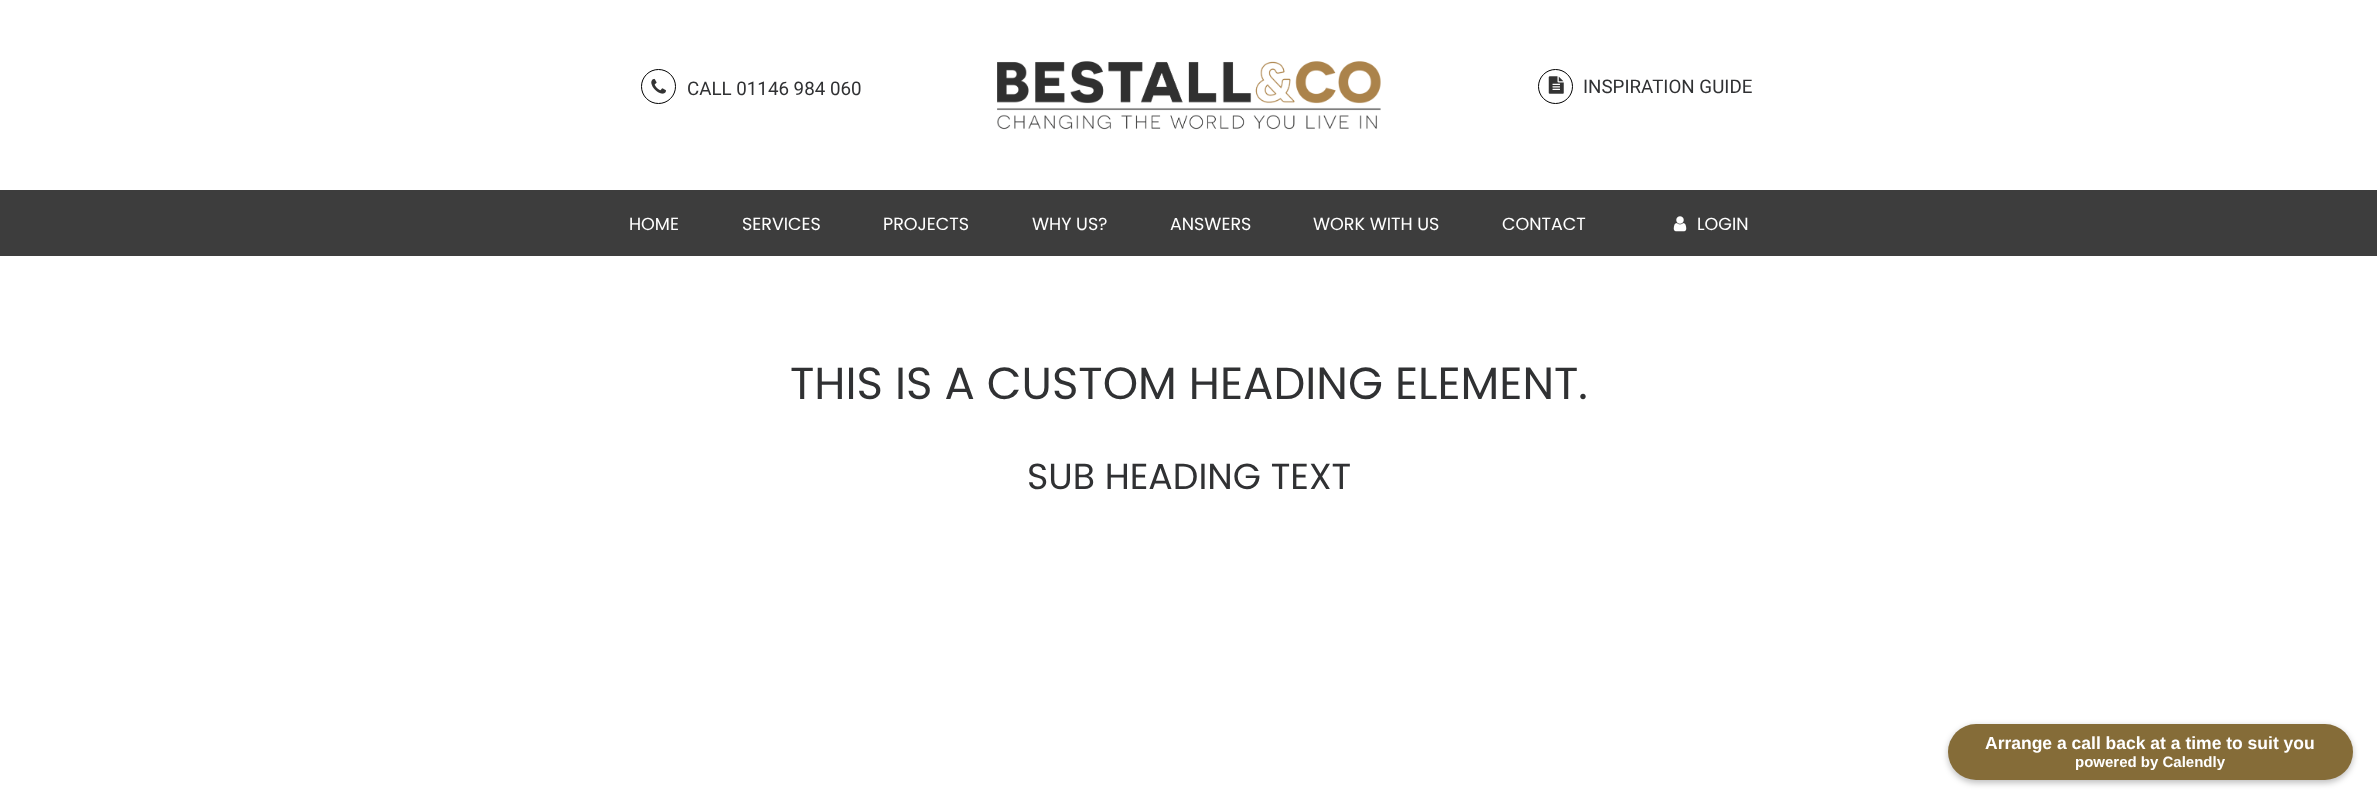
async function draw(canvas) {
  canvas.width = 2377;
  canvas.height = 798;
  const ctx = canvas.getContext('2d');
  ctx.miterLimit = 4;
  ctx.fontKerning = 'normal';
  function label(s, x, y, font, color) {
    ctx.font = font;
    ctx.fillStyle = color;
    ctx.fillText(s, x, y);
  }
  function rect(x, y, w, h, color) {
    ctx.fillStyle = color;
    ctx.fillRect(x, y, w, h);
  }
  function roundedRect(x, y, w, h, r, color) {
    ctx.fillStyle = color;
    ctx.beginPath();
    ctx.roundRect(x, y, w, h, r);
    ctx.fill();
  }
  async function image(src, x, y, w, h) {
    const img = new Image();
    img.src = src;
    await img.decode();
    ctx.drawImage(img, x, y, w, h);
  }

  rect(0, 0, 2377, 798, '#fff');
  ctx.beginPath();
  ctx.arc(658.5, 86.5, 17, 0, 2 * Math.PI);
  ctx.strokeStyle = '#000';
  ctx.stroke();
  await image('assets/img1.png', 651, 78, 15, 16);
  label('CALL 01146 984 060', 687, 95, '18.75px Roboto', '#303133');
  await image('assets/img2.png', 997, 61, 384, 69);
  ctx.beginPath();
  ctx.arc(1555.5, 86.5, 17, 0, 2 * Math.PI);
  ctx.stroke();
  await image('assets/img3.png', 1548, 76, 16, 18);
  label('INSPIRATION GUIDE', 1583, 93, '18.75px Roboto', '#303133');
  rect(0, 190, 2377, 66, '#3d3d3d');
  label('HOME', 629, 230, '17.5px Poppins', '#fff');
  label('SERVICES', 742, 230, '17.5px Poppins', '#fff');
  label('PROJECTS', 883, 230, '17.5px Poppins', '#fff');
  label('WHY US?', 1032, 230, '17.5px Poppins', '#fff');
  label('ANSWERS', 1170, 230, '17.5px Poppins', '#fff');
  label('WORK WITH US', 1313, 230, '17.5px Poppins', '#fff');
  label('CONTACT', 1502, 230, '17.5px Poppins', '#fff');
  await image('assets/img4.png', 1673, 216, 14, 16);
  label('LOGIN', 1697, 230, '17.5px Poppins', '#fff');
  label('THIS IS A CUSTOM HEADING ELEMENT.', 790, 399, '45px Poppins', '#303133');
  label('SUB HEADING TEXT', 1027, 489, '36.25px Poppins', '#303133');
  ctx.fillStyle = '#00000040';
  ctx.filter = 'blur(3px)';
  ctx.beginPath();
  ctx.roundRect(1948, 726, 405, 57, 28.5);
  ctx.fill();
  ctx.filter = 'none';
  roundedRect(1948, 724, 405, 56, 28, '#856c38');
  label('Arrange a call back at a time to suit you', 1985, 749, 'bold 17.5px Liberation Sans', '#fff');
  label('powered by Calendly', 2075, 767, 'bold 15px Liberation Sans', '#fff');
}

draw(document.querySelector('canvas'));
